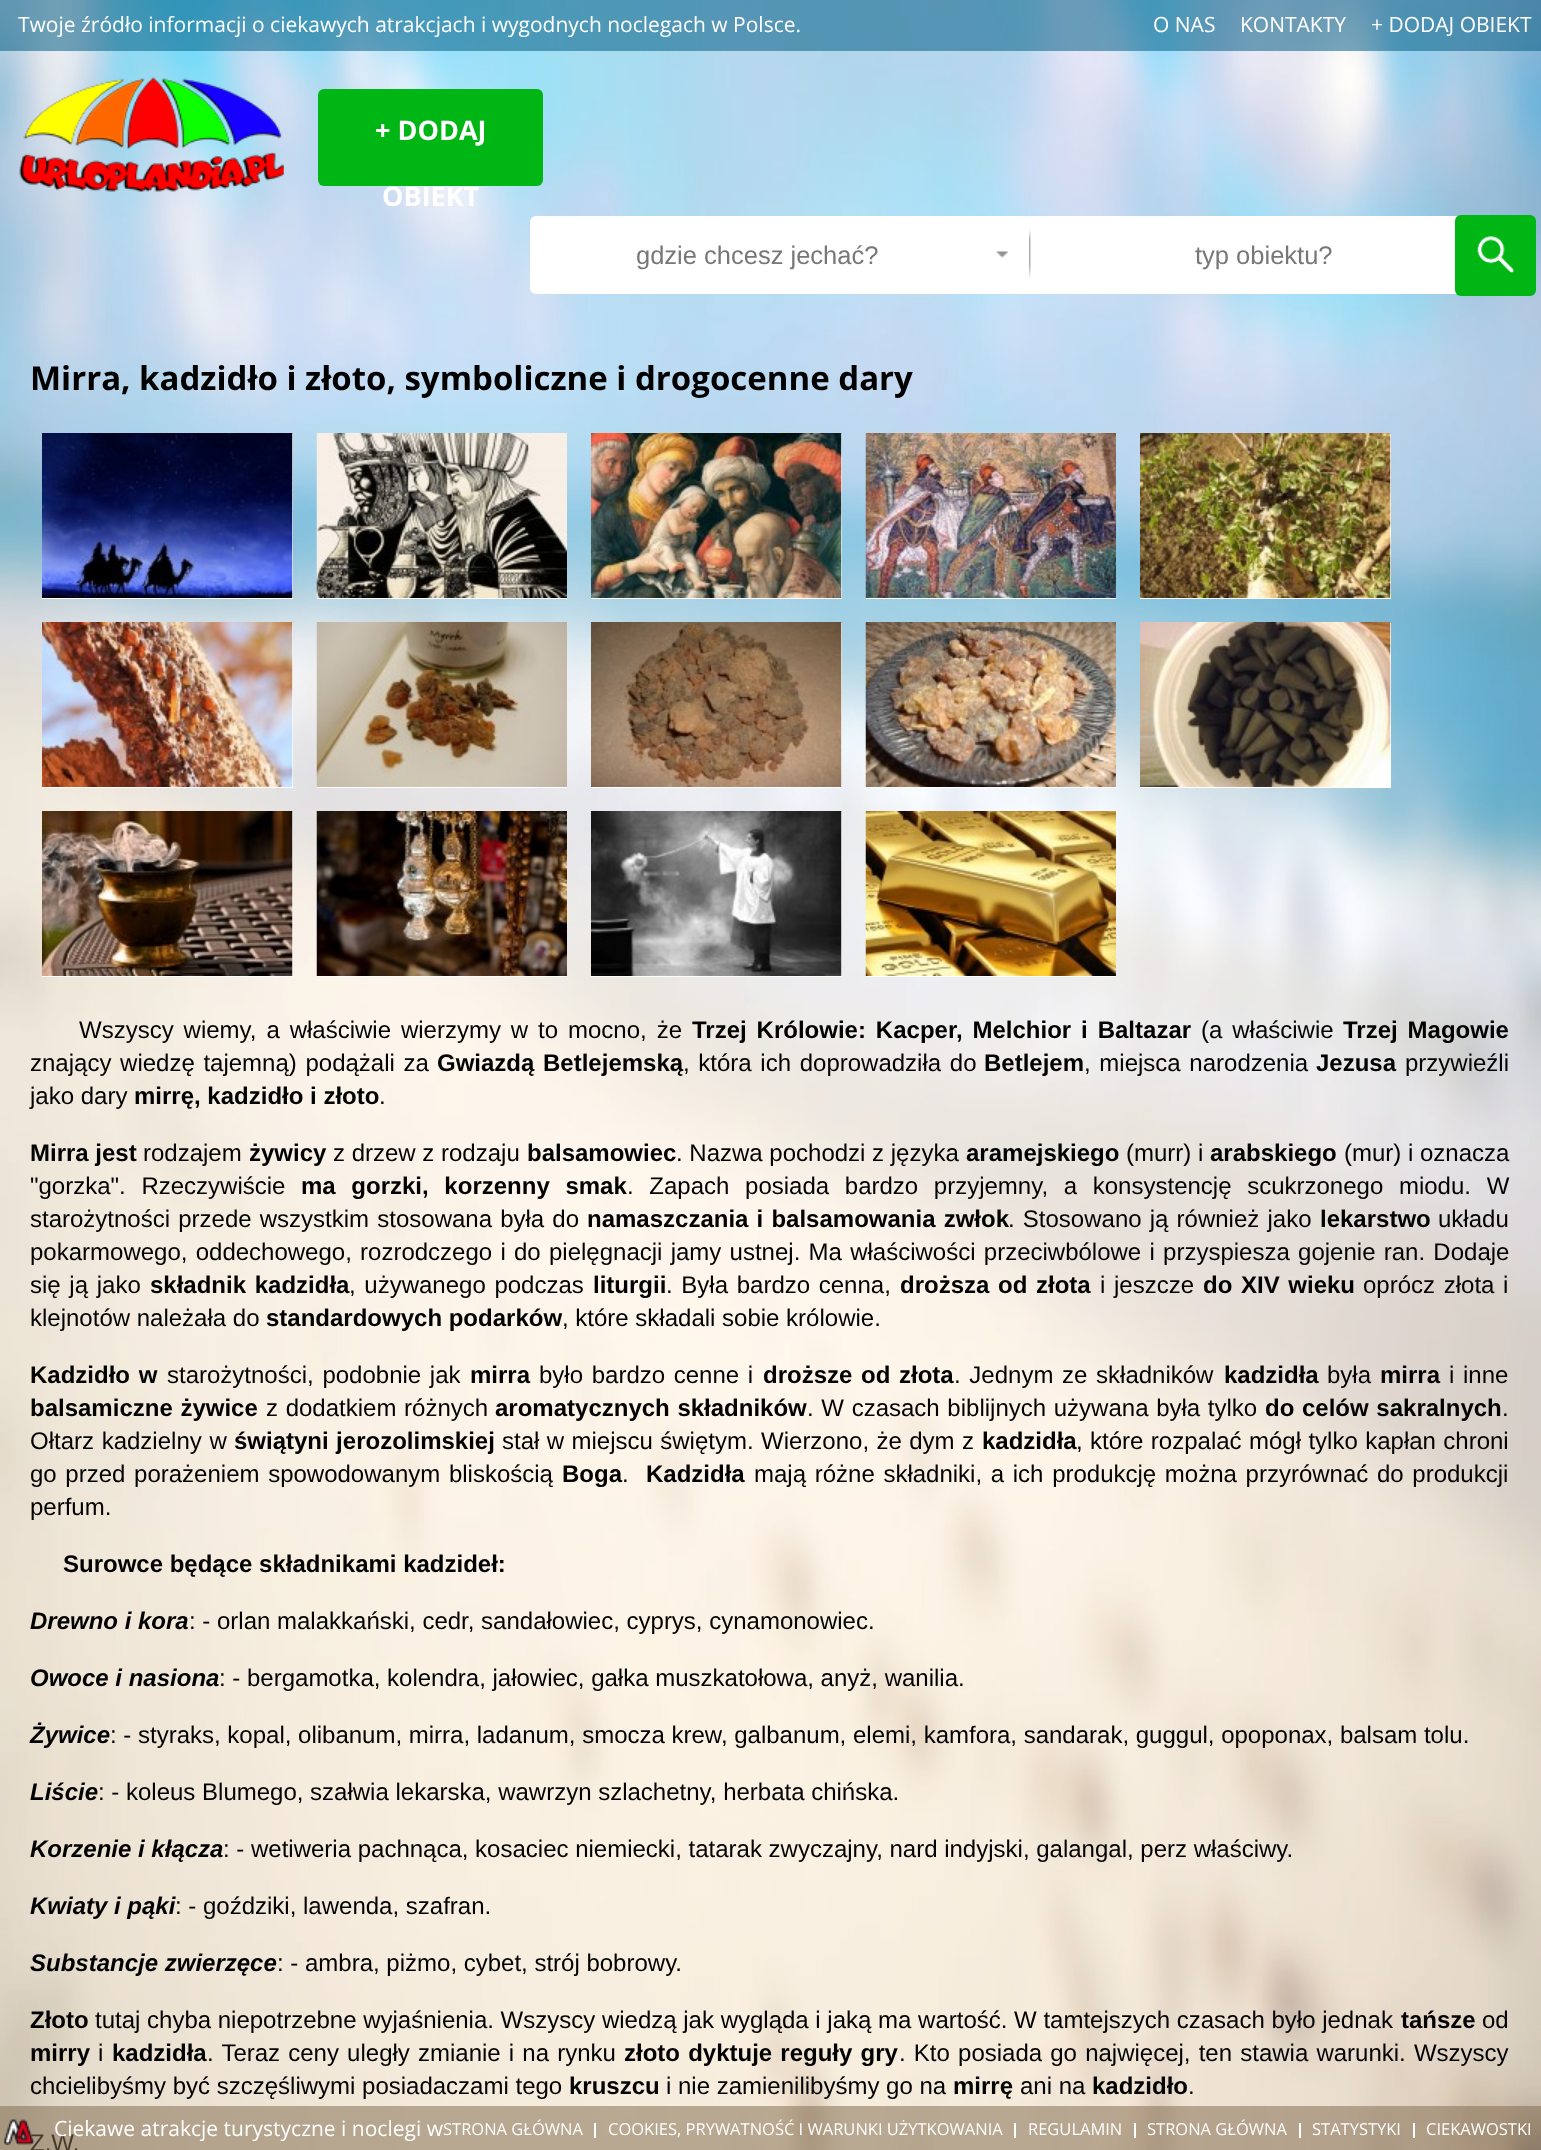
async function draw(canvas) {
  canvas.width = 1541;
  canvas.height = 2150;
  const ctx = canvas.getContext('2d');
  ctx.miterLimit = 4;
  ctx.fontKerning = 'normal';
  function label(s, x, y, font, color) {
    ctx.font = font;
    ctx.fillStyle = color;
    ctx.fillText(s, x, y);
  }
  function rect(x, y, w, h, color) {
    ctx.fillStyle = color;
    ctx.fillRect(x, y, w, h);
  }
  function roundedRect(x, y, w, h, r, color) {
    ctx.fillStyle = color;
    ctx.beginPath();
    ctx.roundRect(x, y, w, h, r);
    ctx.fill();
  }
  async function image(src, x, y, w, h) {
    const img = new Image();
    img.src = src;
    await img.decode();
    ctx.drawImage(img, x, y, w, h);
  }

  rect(0, 0, 1541, 2150, '#fff');
  await image('assets/img1.png', 0, 0, 1541, 2150);
  rect(0, 0, 1541, 51, '#005b8287');
  label('Twoje źródło informacji o ciekawych atrakcjach i wygodnych noclegach w Polsce.', 18, 32, '21px Open Sans', '#fff');
  label('O NAS', 1153, 32, '21px Open Sans', '#fff');
  label('KONTAKTY', 1240, 32, '21px Open Sans', '#fff');
  label('+ DODAJ OBIEKT', 1371, 32, '21px Open Sans', '#fff');
  await image('assets/img2.png', 19, 77, 265, 115);
  roundedRect(318, 89, 225, 97, 6, '#00b614');
  label('+ DODAJ', 375, 140, 'bold 27px Open Sans', '#fff');
  label('OBIEKT', 382, 206, 'bold 27px Open Sans', '#fff');
  roundedRect(530, 216, 1005, 78, 6, '#fff');
  label('gdzie chcesz jechać?', 636, 264, '25.5px Liberation Sans', '#777');
  await image('assets/img3.png', 996, 251, 12, 7);
  await image('assets/img4.png', 1029, 229, 2, 50);
  label('typ obiektu?', 1195, 264, '25.5px Liberation Sans', '#777');
  roundedRect(1455, 215, 81, 81, 6, '#00b614');
  await image('assets/img5.png', 1477, 236, 38, 37);
  label('Mirra, kadzidło i złoto, symboliczne i drogocenne dary', 30, 390, 'bold 33px Open Sans', '#000');
  rect(42, 434, 251, 165, '#fff');
  await image('assets/img6.png', 42, 433, 251, 165);
  rect(317, 598, 250, 1, '#fff');
  await image('assets/img7.png', 316, 433, 251, 165);
  rect(591, 434, 251, 165, '#fff');
  await image('assets/img8.png', 591, 433, 251, 165);
  rect(866, 598, 250, 1, '#fff');
  await image('assets/img9.png', 865, 433, 251, 165);
  rect(1140, 434, 251, 165, '#fff');
  await image('assets/img10.png', 1140, 433, 251, 165);
  rect(42, 623, 251, 165, '#fff');
  await image('assets/img11.png', 42, 622, 251, 165);
  rect(317, 787, 250, 1, '#fff');
  await image('assets/img12.png', 316, 622, 251, 165);
  rect(591, 623, 251, 165, '#fff');
  await image('assets/img13.png', 591, 622, 251, 165);
  rect(866, 787, 250, 1, '#fff');
  await image('assets/img14.png', 865, 622, 251, 165);
  rect(1140, 623, 251, 165, '#fff');
  await image('assets/img15.png', 1140, 622, 251, 165);
  rect(42, 812, 251, 165, '#fff');
  await image('assets/img16.png', 42, 811, 251, 165);
  rect(317, 976, 250, 1, '#fff');
  await image('assets/img17.png', 316, 811, 251, 165);
  rect(591, 812, 251, 165, '#fff');
  await image('assets/img18.png', 591, 811, 251, 165);
  rect(866, 976, 250, 1, '#fff');
  await image('assets/img19.png', 865, 811, 251, 165);
  ctx.wordSpacing = '3.25px';
  label('Wszyscy wiemy, a właściwie wierzymy w to mocno, że', 79, 1038, '24px Liberation Sans', '#000');
  label('Trzej Królowie: Kacper, Melchior i Baltazar', 692, 1038, 'bold 24px Liberation Sans', '#000');
  label('(a właściwie', 1201, 1038, '24px Liberation Sans', '#000');
  label('Trzej Magowie', 1343, 1038, 'bold 24px Liberation Sans', '#000');
  ctx.wordSpacing = '2px';
  label('znający wiedzę tajemną) podążali za', 30, 1071, '24px Liberation Sans', '#000');
  label('Gwiazdą Betlejemską', 437, 1071, 'bold 24px Liberation Sans', '#000');
  label(', która ich doprowadziła do', 683, 1071, '24px Liberation Sans', '#000');
  ctx.wordSpacing = '0px';
  label('Betlejem', 984, 1071, 'bold 24px Liberation Sans', '#000');
  ctx.wordSpacing = '2px';
  label(', miejsca narodzenia', 1084, 1071, '24px Liberation Sans', '#000');
  ctx.wordSpacing = '0px';
  label('Jezusa', 1316, 1071, 'bold 24px Liberation Sans', '#000');
  label('przywieźli', 1405, 1071, '24px Liberation Sans', '#000');
  label('jako dary', 30, 1104, '24px Liberation Sans', '#000');
  label('mirrę, kadzidło i złoto', 134, 1104, 'bold 24px Liberation Sans', '#000');
  label('.', 379, 1104, '24px Liberation Sans', '#000');
  label('Mirra jest', 30, 1161, 'bold 24px Liberation Sans', '#000');
  label('rodzajem', 143, 1161, '24px Liberation Sans', '#000');
  label('żywicy', 249, 1161, 'bold 24px Liberation Sans', '#000');
  label('z drzew z rodzaju', 333, 1161, '24px Liberation Sans', '#000');
  label('balsamowiec', 527, 1161, 'bold 24px Liberation Sans', '#000');
  label('. Nazwa pochodzi z języka', 676, 1161, '24px Liberation Sans', '#000');
  label('aramejskiego', 966, 1161, 'bold 24px Liberation Sans', '#000');
  label('(murr) i', 1126, 1161, '24px Liberation Sans', '#000');
  label('arabskiego', 1210, 1161, 'bold 24px Liberation Sans', '#000');
  label('(mur) i oznacza', 1344, 1161, '24px Liberation Sans', '#000');
  ctx.wordSpacing = '9px';
  label('"gorzka". Rzeczywiście', 30, 1194, '24px Liberation Sans', '#000');
  label('ma gorzki, korzenny smak', 301, 1194, 'bold 24px Liberation Sans', '#000');
  label('. Zapach posiada bardzo przyjemny, a konsystencję scukrzonego miodu. W', 627, 1194, '24px Liberation Sans', '#000');
  ctx.wordSpacing = '1.5px';
  label('starożytności przede wszystkim stosowana była do', 30, 1227, '24px Liberation Sans', '#000');
  label('namaszczania i balsamowania zwłok', 587, 1227, 'bold 24px Liberation Sans', '#000');
  label('. Stosowano ją również jako', 1008, 1227, '24px Liberation Sans', '#000');
  ctx.wordSpacing = '0px';
  label('lekarstwo', 1320, 1227, 'bold 24px Liberation Sans', '#000');
  label('układu', 1438, 1227, '24px Liberation Sans', '#000');
  ctx.wordSpacing = '1.6px';
  label('pokarmowego, oddechowego, rozrodczego i do pielęgnacji jamy ustnej. Ma właściwości przeciwbólowe i przyspiesza gojenie ran. Dodaje', 30, 1260, '24px Liberation Sans', '#000');
  ctx.wordSpacing = '2px';
  label('się ją jako', 30, 1293, '24px Liberation Sans', '#000');
  label('składnik kadzidła', 150, 1293, 'bold 24px Liberation Sans', '#000');
  label(', używanego podczas', 349, 1293, '24px Liberation Sans', '#000');
  ctx.wordSpacing = '0px';
  label('liturgii', 593, 1293, 'bold 24px Liberation Sans', '#000');
  ctx.wordSpacing = '2px';
  label('. Była bardzo cenna,', 666, 1293, '24px Liberation Sans', '#000');
  label('droższa od złota', 900, 1293, 'bold 24px Liberation Sans', '#000');
  label('i jeszcze', 1100, 1293, '24px Liberation Sans', '#000');
  label('do XIV wieku', 1203, 1293, 'bold 24px Liberation Sans', '#000');
  label('oprócz złota i', 1363, 1293, '24px Liberation Sans', '#000');
  ctx.wordSpacing = '0px';
  label('klejnotów należała do', 30, 1326, '24px Liberation Sans', '#000');
  label('standardowych podarków', 266, 1326, 'bold 24px Liberation Sans', '#000');
  label(', które składali sobie królowie.', 562, 1326, '24px Liberation Sans', '#000');
  ctx.wordSpacing = '2px';
  label('Kadzidło w', 30, 1383, 'bold 24px Liberation Sans', '#000');
  label('starożytności, podobnie jak', 167, 1383, '24px Liberation Sans', '#000');
  ctx.wordSpacing = '0px';
  label('mirra', 470, 1383, 'bold 24px Liberation Sans', '#000');
  ctx.wordSpacing = '2px';
  label('było bardzo cenne i', 539, 1383, '24px Liberation Sans', '#000');
  label('droższe od złota', 763, 1383, 'bold 24px Liberation Sans', '#000');
  label('. Jednym ze składników', 954, 1383, '24px Liberation Sans', '#000');
  ctx.wordSpacing = '0px';
  label('kadzidła', 1224, 1383, 'bold 24px Liberation Sans', '#000');
  label('była', 1327, 1383, '24px Liberation Sans', '#000');
  label('mirra', 1380, 1383, 'bold 24px Liberation Sans', '#000');
  ctx.wordSpacing = '2px';
  label('i inne', 1449, 1383, '24px Liberation Sans', '#000');
  ctx.wordSpacing = '1px';
  label('balsamiczne żywice', 30, 1416, 'bold 24px Liberation Sans', '#000');
  label('z dodatkiem różnych', 266, 1416, '24px Liberation Sans', '#000');
  label('aromatycznych składników', 495, 1416, 'bold 24px Liberation Sans', '#000');
  label('. W czasach biblijnych używana była tylko', 807, 1416, '24px Liberation Sans', '#000');
  label('do celów sakralnych', 1265, 1416, 'bold 24px Liberation Sans', '#000');
  ctx.wordSpacing = '0px';
  label('.', 1502, 1416, '24px Liberation Sans', '#000');
  ctx.wordSpacing = '1px';
  label('Ołtarz kadzielny w', 30, 1449, '24px Liberation Sans', '#000');
  ctx.wordSpacing = '0.75px';
  label('świątyni jerozolimskiej', 234, 1449, 'bold 24px Liberation Sans', '#000');
  label('stał w miejscu świętym. Wierzono, że dym z', 502, 1449, '24px Liberation Sans', '#000');
  ctx.wordSpacing = '0px';
  label('kadzidła', 982, 1449, 'bold 24px Liberation Sans', '#000');
  ctx.wordSpacing = '0.75px';
  label(', które rozpalać mógł tylko kapłan chroni', 1076, 1449, '24px Liberation Sans', '#000');
  ctx.wordSpacing = '2px';
  label('go przed porażeniem spowodowanym bliskością', 30, 1482, '24px Liberation Sans', '#000');
  ctx.wordSpacing = '0px';
  label('Boga', 562, 1482, 'bold 24px Liberation Sans', '#000');
  label('.', 622, 1482, '24px Liberation Sans', '#000');
  label('Kadzidła', 646, 1482, 'bold 24px Liberation Sans', '#000');
  ctx.wordSpacing = '2px';
  label('mają różne składniki, a ich produkcję można przyrównać do produkcji', 754, 1482, '24px Liberation Sans', '#000');
  ctx.wordSpacing = '0px';
  label('perfum.', 30, 1515, '24px Liberation Sans', '#000');
  label('Surowce będące składnikami kadzideł:', 63, 1572, 'bold 24px Liberation Sans', '#000');
  label('Drewno i kora', 30, 1629, 'italic bold 24px Liberation Sans', '#000');
  label(': - orlan malakkański, cedr, sandałowiec, cyprys, cynamonowiec.', 189, 1629, '24px Liberation Sans', '#000');
  label('Owoce i nasiona', 30, 1686, 'italic bold 24px Liberation Sans', '#000');
  label(': - bergamotka, kolendra, jałowiec, gałka muszkatołowa, anyż, wanilia.', 219, 1686, '24px Liberation Sans', '#000');
  label('Żywice', 30, 1743, 'italic bold 24px Liberation Sans', '#000');
  label(': - styraks, kopal, olibanum, mirra, ladanum, smocza krew, galbanum, elemi, kamfora, sandarak, guggul, opoponax, balsam tolu.', 110, 1743, '24px Liberation Sans', '#000');
  label('Liście', 30, 1800, 'italic bold 24px Liberation Sans', '#000');
  label(': - koleus Blumego, szałwia lekarska, wawrzyn szlachetny, herbata chińska.', 98, 1800, '24px Liberation Sans', '#000');
  label('Korzenie i kłącza', 30, 1857, 'italic bold 24px Liberation Sans', '#000');
  label(': - wetiweria pachnąca, kosaciec niemiecki, tatarak zwyczajny, nard indyjski, galangal, perz właściwy.', 223, 1857, '24px Liberation Sans', '#000');
  label('Kwiaty i pąki', 30, 1914, 'italic bold 24px Liberation Sans', '#000');
  label(': - goździki, lawenda, szafran.', 175, 1914, '24px Liberation Sans', '#000');
  label('Substancje zwierzęce', 30, 1971, 'italic bold 24px Liberation Sans', '#000');
  label(': - ambra, piżmo, cybet, strój bobrowy.', 277, 1971, '24px Liberation Sans', '#000');
  label('Złoto', 30, 2028, 'bold 24px Liberation Sans', '#000');
  label('tutaj chyba niepotrzebne wyjaśnienia. Wszyscy wiedzą jak wygląda i jaką ma wartość. W tamtejszych czasach było jednak', 95, 2028, '24px Liberation Sans', '#000');
  label('tańsze', 1401, 2028, 'bold 24px Liberation Sans', '#000');
  label('od', 1482, 2028, '24px Liberation Sans', '#000');
  label('mirry', 30, 2061, 'bold 24px Liberation Sans', '#000');
  label('i', 98, 2061, '24px Liberation Sans', '#000');
  label('kadzidła', 112, 2061, 'bold 24px Liberation Sans', '#000');
  ctx.wordSpacing = '1.5px';
  label('. Teraz ceny uległy zmianie i na rynku', 207, 2061, '24px Liberation Sans', '#000');
  label('złoto dyktuje reguły gry', 624, 2061, 'bold 24px Liberation Sans', '#000');
  label('. Kto posiada go najwięcej, ten stawia warunki. Wszyscy', 899, 2061, '24px Liberation Sans', '#000');
  ctx.wordSpacing = '0px';
  label('chcielibyśmy być szczęśliwymi posiadaczami tego', 30, 2094, '24px Liberation Sans', '#000');
  label('kruszcu', 569, 2094, 'bold 24px Liberation Sans', '#000');
  label('i nie zamienilibyśmy go na', 666, 2094, '24px Liberation Sans', '#000');
  label('mirrę', 953, 2094, 'bold 24px Liberation Sans', '#000');
  label('ani na', 1020, 2094, '24px Liberation Sans', '#000');
  label('kadzidło', 1092, 2094, 'bold 24px Liberation Sans', '#000');
  label('.', 1188, 2094, '24px Liberation Sans', '#000');
  label('Z.W.', 30, 2151, '24px Liberation Sans', '#000');
  rect(0, 2106, 1541, 44, '#836b4f87');
  await image('assets/img20.png', 3, 2119, 32, 26);
  label('Ciekawe atrakcje turystyczne i noclegi w', 54, 2136, '21px Open Sans', '#fff');
  label('STRONA GŁÓWNA', 443, 2135, '16.5px Open Sans', '#fff');
  rect(594, 2123, 2, 15, '#fff');
  label('COOKIES, PRYWATNOŚĆ I WARUNKI UŻYTKOWANIA', 608, 2135, '16.5px Open Sans', '#fff');
  rect(1014, 2123, 2, 15, '#fff');
  label('REGULAMIN', 1028, 2135, '16.5px Open Sans', '#fff');
  rect(1134, 2123, 2, 15, '#fff');
  label('STRONA GŁÓWNA', 1147, 2135, '16.5px Open Sans', '#fff');
  rect(1299, 2123, 2, 15, '#fff');
  label('STATYSTYKI', 1312, 2135, '16.5px Open Sans', '#fff');
  rect(1413, 2123, 2, 15, '#fff');
  label('CIEKAWOSTKI', 1426, 2135, '16.5px Open Sans', '#fff');
}

draw(document.querySelector('canvas'));
